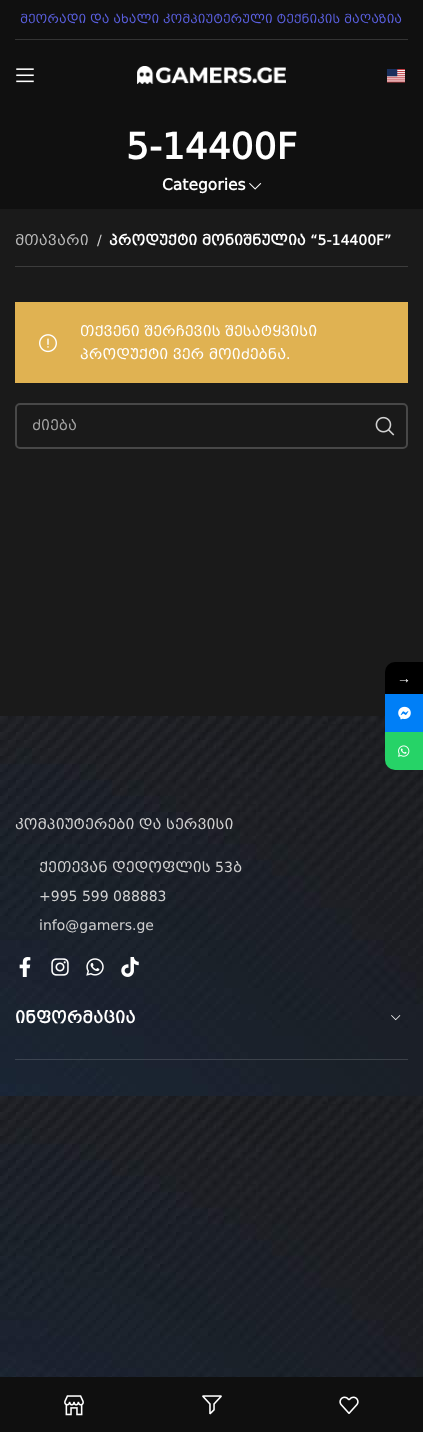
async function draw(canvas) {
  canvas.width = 423;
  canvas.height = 1432;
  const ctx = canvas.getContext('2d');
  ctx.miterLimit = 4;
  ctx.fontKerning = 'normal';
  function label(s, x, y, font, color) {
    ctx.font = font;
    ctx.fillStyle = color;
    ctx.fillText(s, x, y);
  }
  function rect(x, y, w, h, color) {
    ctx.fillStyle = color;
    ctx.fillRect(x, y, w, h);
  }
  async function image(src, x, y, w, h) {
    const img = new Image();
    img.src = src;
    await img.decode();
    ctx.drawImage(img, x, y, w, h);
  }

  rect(0, 0, 423, 1432, '#1a1a1a');
  rect(0, 0, 423, 209, '#101010');
  rect(15, 39, 393, 1, '#343434');
  label('მეორადი და ახალი კომპიუტერული ტექნიკის მაღაზია', 20, 23, '12px "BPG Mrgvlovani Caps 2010"', '#5a5fde');
  await image('assets/img1.png', 16, 68, 18, 15);
  await image('assets/img2.png', 137, 66, 149, 18);
  await image('assets/img3.png', 387, 69, 18, 14);
  label('5-14400F', 126, 159, 'bold 36px "BPG Mrgvlovani Caps 2010"', '#fff');
  label('Categories', 162, 190, 'bold 15.5px "BPG Mrgvlovani Caps 2010"', '#fff');
  await image('assets/img4.png', 249, 183, 13, 7);
  rect(15, 266, 393, 1, '#3c3c3c');
  label('მთავარი', 15, 245, '14px "BPG Mrgvlovani Caps 2010"', '#bababa');
  label('/', 97, 245, '14px "BPG Mrgvlovani Caps 2010"', '#d1d1d1');
  label('პროდუქტი მონიშნულია “5-14400F”', 109, 245, 'bold 14px "BPG Mrgvlovani Caps 2010"', '#fff');
  rect(15, 302, 393, 81, '#e0b252');
  label('თქვენი შერჩევის შესატყვისი', 80, 336, '14px "BPG Mrgvlovani Caps 2010"', '#fff');
  await image('assets/img5.png', 39, 334, 18, 19);
  label('პროდუქტი ვერ მოიძებნა.', 80, 359, '14px "BPG Mrgvlovani Caps 2010"', '#fff');
  ctx.beginPath();
  ctx.roundRect(16, 404, 391, 44, 4);
  ctx.strokeStyle = '#484848';
  ctx.lineWidth = 2;
  ctx.stroke();
  label('ძიება', 32, 430, '14px "BPG Mrgvlovani Caps 2010"', '#a3a3a3');
  await image('assets/img6.png', 375, 416, 20, 20);
  await image('assets/img7.png', 0, 716, 423, 661);
  label('კომპიუტერები და სერვისი', 15, 829, '14px "BPG Mrgvlovani Caps 2010"', '#d1d1d1');
  label('ქეთევან დედოფლის 53ბ', 39, 872, '14px "BPG Mrgvlovani Caps 2010"', '#d1d1d1');
  label('+995 599 088883', 39, 901, '14px "BPG Mrgvlovani Caps 2010"', '#d1d1d1');
  label('info@gamers.ge', 39, 930, '14px "BPG Mrgvlovani Caps 2010"', '#d1d1d1');
  await image('assets/img8.png', 19, 957, 12, 20);
  await image('assets/img9.png', 51, 958, 18, 18);
  await image('assets/img10.png', 86, 958, 18, 18);
  await image('assets/img11.png', 121, 957, 18, 20);
  rect(15, 1059, 393, 1, '#ffffff26');
  label('ინფორმაცია', 15, 1023, 'bold 16px "BPG Mrgvlovani Caps 2010"', '#fff');
  await image('assets/img12.png', 391, 1015, 10, 6);
  ctx.fillStyle = '#000';
  ctx.beginPath();
  ctx.roundRect(385, 662, 38, 32, [10, 0, 0, 0]);
  ctx.fill();
  label('→', 397, 683, '14px Liberation Serif', '#fff');
  rect(385, 694, 38, 38, '#007ff7');
  await image('assets/img13.png', 398, 706, 13, 14);
  ctx.fillStyle = '#26d367';
  ctx.beginPath();
  ctx.roundRect(385, 732, 38, 38, [0, 0, 0, 10]);
  ctx.fill();
  await image('assets/img14.png', 398, 745, 12, 12);
  rect(0, 1377, 423, 55, '#0f0f0f');
  await image('assets/img15.png', 64, 1395, 20, 21);
  await image('assets/img16.png', 202, 1395, 20, 20);
  await image('assets/img17.png', 339, 1396, 20, 18);
}

draw(document.querySelector('canvas'));
